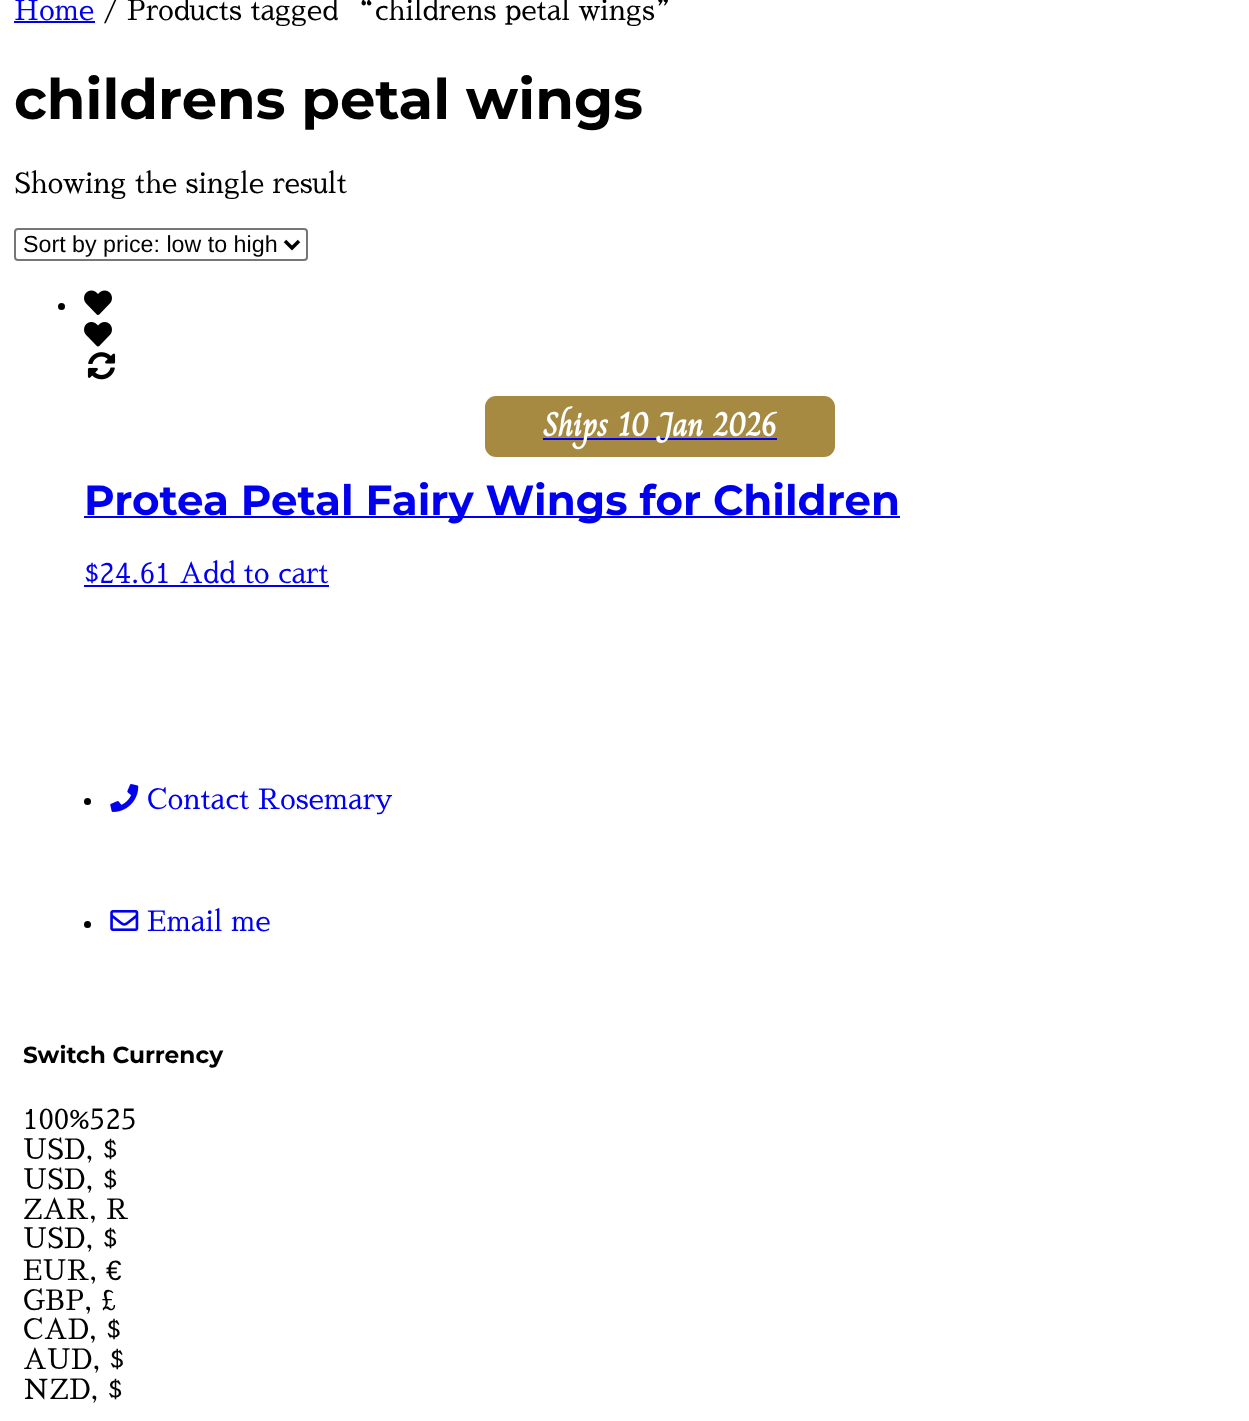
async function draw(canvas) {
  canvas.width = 1249;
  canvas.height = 1421;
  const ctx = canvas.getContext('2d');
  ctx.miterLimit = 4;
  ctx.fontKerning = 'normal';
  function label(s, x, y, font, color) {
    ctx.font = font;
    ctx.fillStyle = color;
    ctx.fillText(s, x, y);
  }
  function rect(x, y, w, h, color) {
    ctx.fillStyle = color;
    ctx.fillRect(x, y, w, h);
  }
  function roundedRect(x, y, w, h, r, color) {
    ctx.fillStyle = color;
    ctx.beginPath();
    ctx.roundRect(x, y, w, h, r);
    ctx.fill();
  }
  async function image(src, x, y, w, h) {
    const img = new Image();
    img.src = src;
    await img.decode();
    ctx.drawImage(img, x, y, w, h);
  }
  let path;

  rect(0, 0, 1249, 1421, '#fff');
  label('Home', 14, 20, '28px Sawarabi Mincho', '#00e');
  rect(14, 21, 81, 2, '#00e');
  label('/ Products tagged “childrens petal wings”', 103, 20, '28px Sawarabi Mincho', '#000');
  label('childrens petal wings', 14, 119, 'bold 56px Montserrat', '#000');
  label('Showing the single result', 14, 193, '28px Sawarabi Mincho', '#000');
  ctx.beginPath();
  ctx.roundRect(15, 229, 292, 31, 3);
  ctx.strokeStyle = '#767676';
  ctx.lineWidth = 2;
  ctx.stroke();
  path = new Path2D('M285 241L292 248L299 241');
  ctx.strokeStyle = '#000';
  ctx.lineWidth = 3.5;
  ctx.stroke(path);
  label('Sort by price: low to high', 23, 252, '23.25px Liberation Sans', '#000');
  ctx.beginPath();
  ctx.arc(61.5, 306.5, 3.5, 0, 2 * Math.PI);
  ctx.fill();
  await image('assets/img1.png', 84, 290, 28, 25);
  await image('assets/img2.png', 84, 322, 28, 25);
  await image('assets/img3.png', 87, 352, 29, 28);
  roundedRect(485, 396, 350, 61, 11, '#a68a42');
  rect(543, 438, 234, 2, '#00e');
  label('Ships 10 Jan 2026', 543, 436, 'bold 33.25px Charm', '#fff');
  rect(84, 516, 816, 2, '#00e');
  label('Protea Petal Fairy Wings for Children', 84, 515, 'bold 42px Montserrat', '#00e');
  label('$24.61 Add to cart', 84, 583, '28px Sawarabi Mincho', '#00e');
  rect(84, 585, 245, 2, '#00e');
  ctx.fillStyle = '#000';
  ctx.beginPath();
  ctx.arc(87.5, 801.5, 3.5, 0, 2 * Math.PI);
  ctx.fill();
  await image('assets/img4.png', 110, 784, 29, 28);
  label('Contact Rosemary', 147, 809, '28px Sawarabi Mincho', '#00e');
  ctx.fillStyle = '#000';
  ctx.beginPath();
  ctx.arc(87.5, 924.5, 3.5, 0, 2 * Math.PI);
  ctx.fill();
  await image('assets/img5.png', 110, 910, 29, 21);
  label('Email me', 147, 931, '28px Sawarabi Mincho', '#00e');
  label('Switch Currency', 23, 1063, 'bold 23.25px Montserrat', '#000');
  label('100%525', 23, 1129, '28px Sawarabi Mincho', '#000');
  label('USD, $', 23, 1159, '28px Sawarabi Mincho', '#000');
  label('USD, $', 23, 1189, '28px Sawarabi Mincho', '#000');
  label('ZAR, R', 23, 1219, '28px Sawarabi Mincho', '#000');
  label('USD, $', 23, 1248, '28px Sawarabi Mincho', '#000');
  label('EUR,', 23, 1280, '28px Sawarabi Mincho', '#000');
  label('€', 106, 1280, '28px Liberation Sans', '#000');
  label('GBP, £', 23, 1310, '28px Sawarabi Mincho', '#000');
  label('CAD, $', 23, 1339, '28px Sawarabi Mincho', '#000');
  label('AUD, $', 23, 1369, '28px Sawarabi Mincho', '#000');
  label('NZD, $', 23, 1399, '28px Sawarabi Mincho', '#000');
}

draw(document.querySelector('canvas'));
